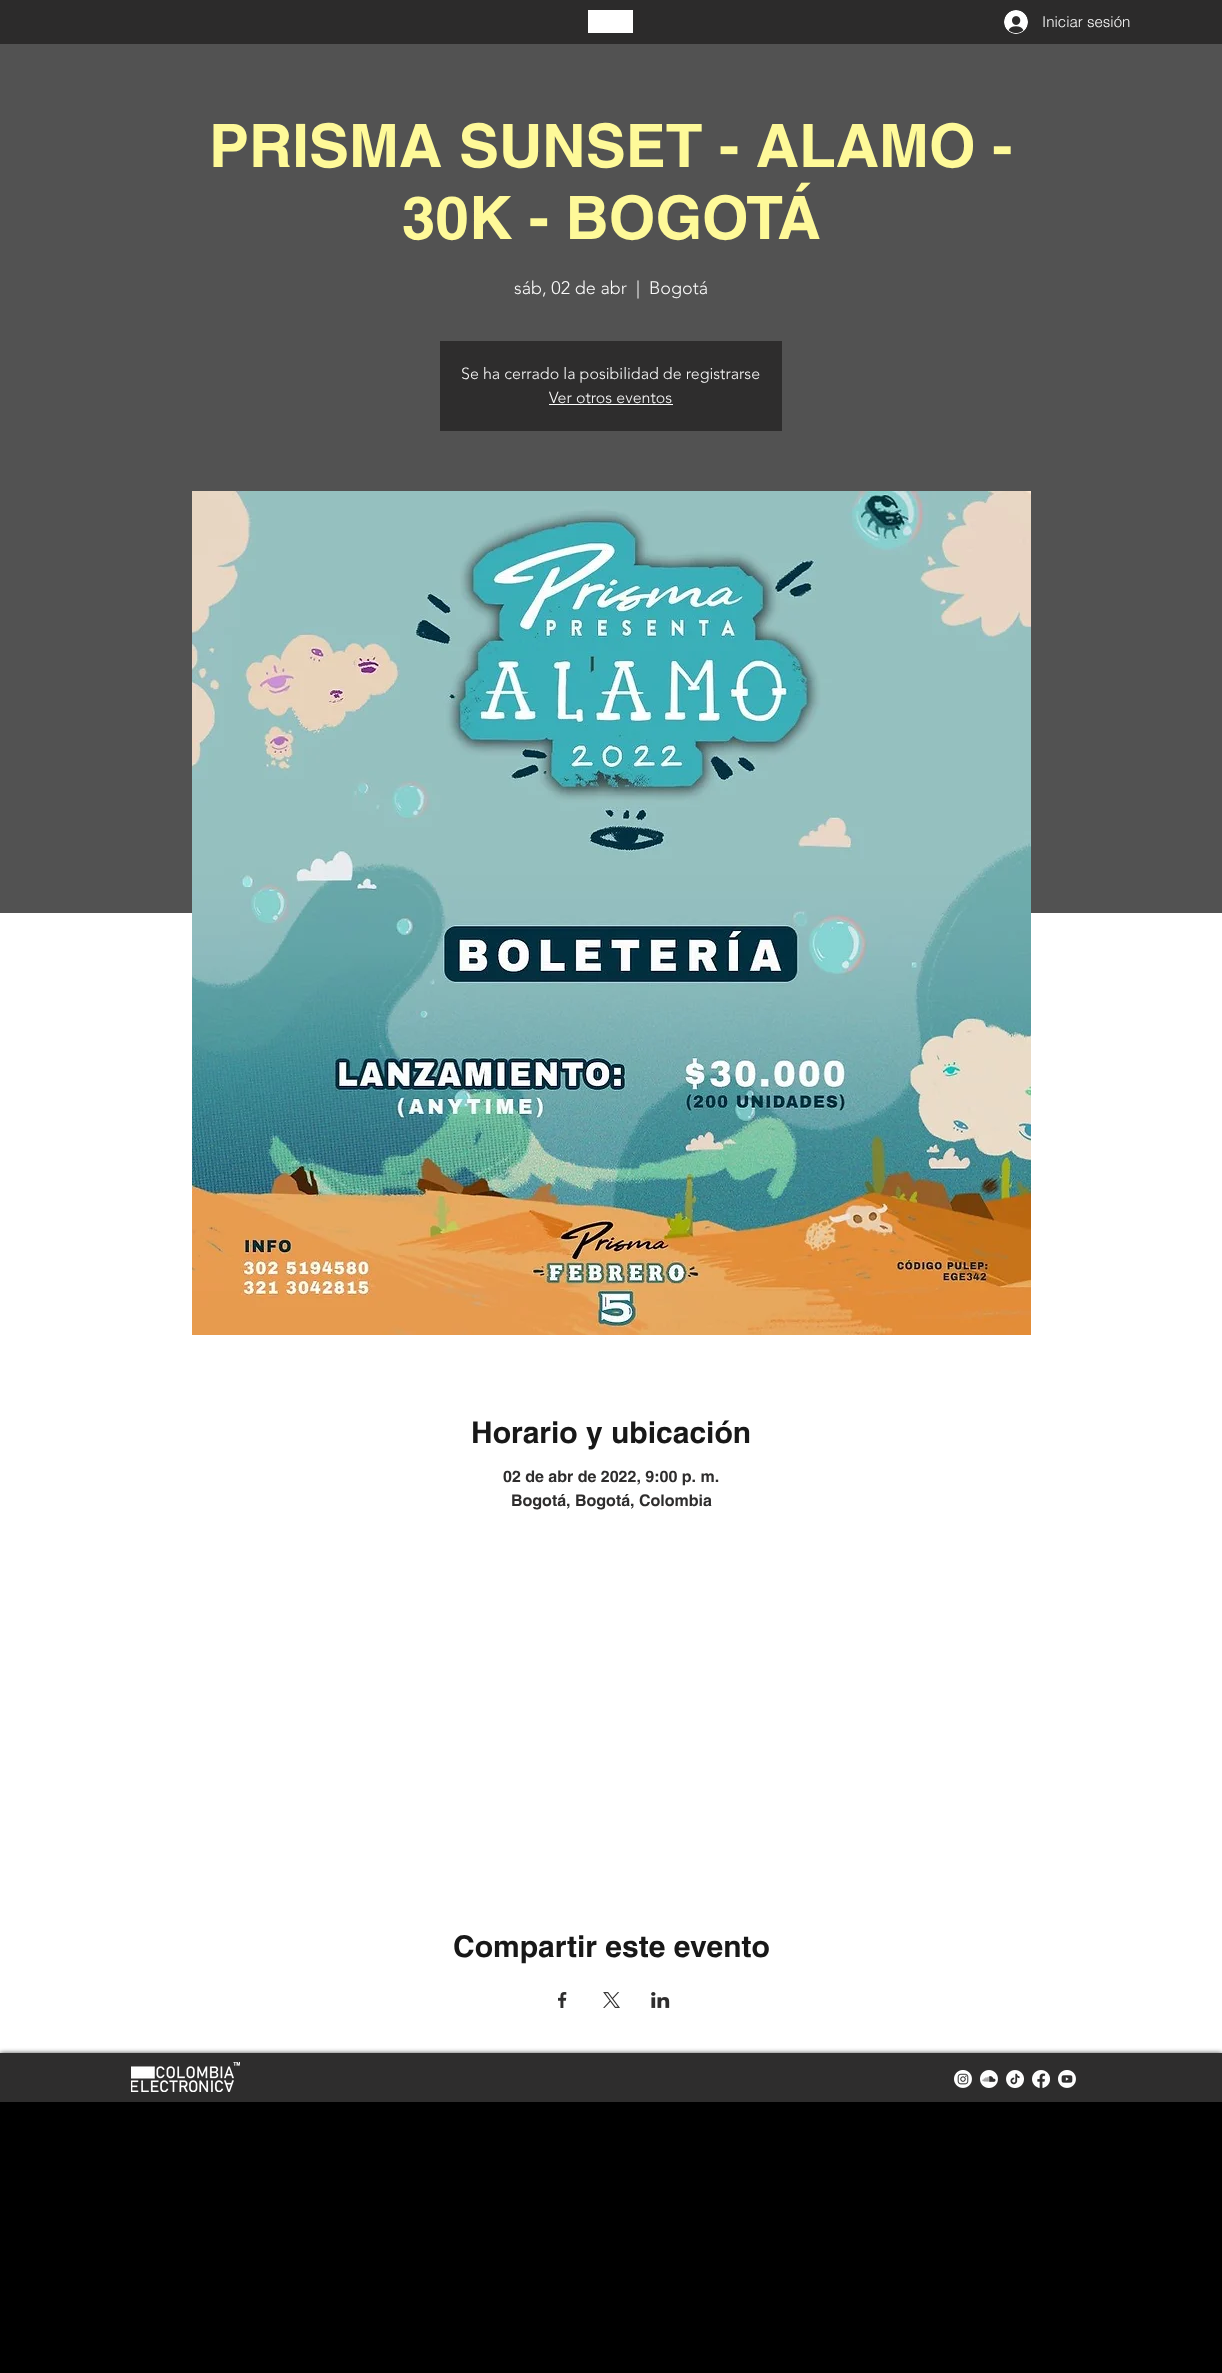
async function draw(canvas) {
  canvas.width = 1222;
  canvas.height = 2373;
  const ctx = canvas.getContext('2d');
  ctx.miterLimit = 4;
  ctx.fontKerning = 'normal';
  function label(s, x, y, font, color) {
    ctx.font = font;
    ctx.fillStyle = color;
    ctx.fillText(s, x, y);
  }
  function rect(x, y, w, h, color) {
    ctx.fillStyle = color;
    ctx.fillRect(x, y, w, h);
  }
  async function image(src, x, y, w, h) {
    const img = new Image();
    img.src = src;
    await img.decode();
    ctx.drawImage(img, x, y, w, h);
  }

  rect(0, 0, 1222, 2373, '#000');
  rect(0, 0, 1222, 44, '#2c2b2b');
  rect(588, 10, 45, 23, '#fff');
  await image('assets/img1.png', 1004, 10, 24, 24);
  label('Iniciar sesión', 1042, 27, '300 15px helvetica', '#fafafa');
  rect(0, 44, 1222, 869, '#525252');
  label('PRISMA SUNSET - ALAMO -', 209, 167, 'bold 60px helvetica', '#fef999');
  label('30K - BOGOTÁ', 402, 239, 'bold 60px helvetica', '#fef999');
  label('sáb, 02 de abr', 514, 294, '300 18px "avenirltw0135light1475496"', '#fafafa');
  label('|', 636, 294, '300 18px "avenirltw0135light1475496"', '#fafafa');
  label('Bogotá', 649, 294, '300 18px "avenirltw0135light1475496"', '#fafafa');
  rect(440, 341, 342, 90, '#2e2d2d');
  label('Se ha cerrado la posibilidad de registrarse', 461, 379, '300 16px "avenirltw0135light1475496"', '#fafafa');
  label('Ver otros eventos', 549, 403, '300 16px "avenirltw0135light1475496"', '#fafafa');
  rect(549, 404, 124, 1, '#fff');
  rect(0, 913, 1222, 1140, '#fff');
  await image('assets/img2.png', 192, 491, 839, 844);
  label('Horario y ubicación', 471, 1443, 'bold 30px helvetica', '#181818');
  label('02 de abr de 2022, 9:00 p. m.', 503, 1482, 'bold 16px helvetica', '#2e2d2d');
  label('Bogotá, Bogotá, Colombia', 511, 1506, 'bold 16px helvetica', '#2e2d2d');
  label('Compartir este evento', 453, 1957, 'bold 30px helvetica', '#181818');
  await image('assets/img3.png', 558, 1992, 9, 16);
  await image('assets/img4.png', 603, 1992, 17, 16);
  await image('assets/img5.png', 651, 1992, 19, 16);
  ctx.fillStyle = '#000000b3';
  ctx.filter = 'blur(2.5px)';
  ctx.beginPath();
  ctx.rect(0, 2053, 1222, 49);
  ctx.fill();
  ctx.filter = 'none';
  rect(0, 2053, 1222, 49, '#2e2d2d');
  await image('assets/img6.png', 131, 2062, 109, 30);
  await image('assets/img7.png', 954, 2070, 18, 18);
  await image('assets/img8.png', 980, 2070, 18, 18);
  await image('assets/img9.png', 1006, 2070, 18, 18);
  await image('assets/img10.png', 1032, 2070, 18, 18);
  await image('assets/img11.png', 1058, 2070, 18, 18);
}

draw(document.querySelector('canvas'));
